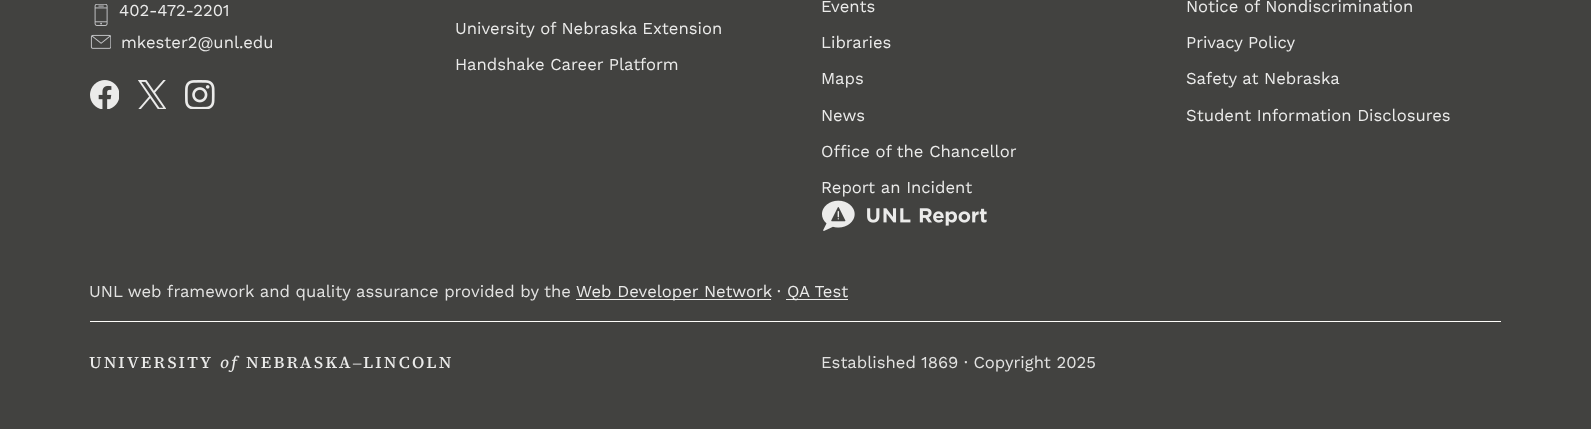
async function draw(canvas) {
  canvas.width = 1591;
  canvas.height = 429;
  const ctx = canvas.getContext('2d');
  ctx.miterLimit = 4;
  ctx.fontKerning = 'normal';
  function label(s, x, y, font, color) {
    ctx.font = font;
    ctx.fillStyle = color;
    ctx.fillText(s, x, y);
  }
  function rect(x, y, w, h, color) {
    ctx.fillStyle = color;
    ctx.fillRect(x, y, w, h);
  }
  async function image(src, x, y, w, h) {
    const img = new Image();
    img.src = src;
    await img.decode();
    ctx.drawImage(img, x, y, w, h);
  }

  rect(0, 0, 1591, 429, '#424240');
  await image('assets/img1.png', 94, 4, 14, 22);
  label('402-472-2201', 119, 16, '16.65px Work Sans', '#ebebea');
  await image('assets/img2.png', 90, 34, 21, 15);
  label('mkester2@unl.edu', 121, 48, '16.65px Work Sans', '#ebebea');
  await image('assets/img3.png', 90, 80, 29, 29);
  await image('assets/img4.png', 138, 80, 28, 29);
  await image('assets/img5.png', 185, 80, 30, 29);
  label('University of Nebraska Extension', 455, 34, '16.65px Work Sans', '#ebebea');
  label('Handshake Career Platform', 455, 70, '16.65px Work Sans', '#ebebea');
  label('Events', 821, 12, '16.65px Work Sans', '#ebebea');
  label('Libraries', 821, 48, '16.65px Work Sans', '#ebebea');
  label('Maps', 821, 84, '16.65px Work Sans', '#ebebea');
  label('News', 821, 121, '16.65px Work Sans', '#ebebea');
  label('Office of the Chancellor', 821, 157, '16.65px Work Sans', '#ebebea');
  label('Report an Incident', 821, 193, '16.65px Work Sans', '#ebebea');
  await image('assets/img6.png', 822, 200, 165, 31);
  label('Notice of Nondiscrimination', 1186, 12, '16.65px Work Sans', '#ebebea');
  label('Privacy Policy', 1186, 48, '16.65px Work Sans', '#ebebea');
  label('Safety at Nebraska', 1186, 84, '16.65px Work Sans', '#ebebea');
  label('Student Information Disclosures', 1186, 121, '16.65px Work Sans', '#ebebea');
  label('UNL web framework and quality assurance provided by the', 89, 297, '16.65px Work Sans', '#e3e3e2');
  rect(576, 299, 195, 1, '#ebebea');
  label('Web Developer Network', 576, 297, '16.65px Work Sans', '#ebebea');
  label('·', 777, 297, '16.65px Work Sans', '#e3e3e2');
  rect(786, 299, 62, 1, '#ebebea');
  label('QA Test', 787, 297, '16.65px Work Sans', '#ebebea');
  rect(90, 321, 1411, 1, '#fefdfa');
  ctx.letterSpacing = '2.25px';
  label('UNIVERSITY', 89, 368, '500 16.65px "Source Serif 4"', '#ebebea');
  label('of', 220, 368, 'italic 500 16.65px "Source Serif 4"', '#ebebea');
  label('NEBRASKA', 246, 368, '500 16.65px "Source Serif 4"', '#ebebea');
  label('–', 353, 368, '16.65px Liberation Serif', '#ebebea');
  label('LINCOLN', 363, 368, '500 16.65px "Source Serif 4"', '#ebebea');
  ctx.letterSpacing = '0px';
  label('Established 1869 · Copyright 2025', 821, 368, '16.65px Work Sans', '#e3e3e2');
}

draw(document.querySelector('canvas'));
